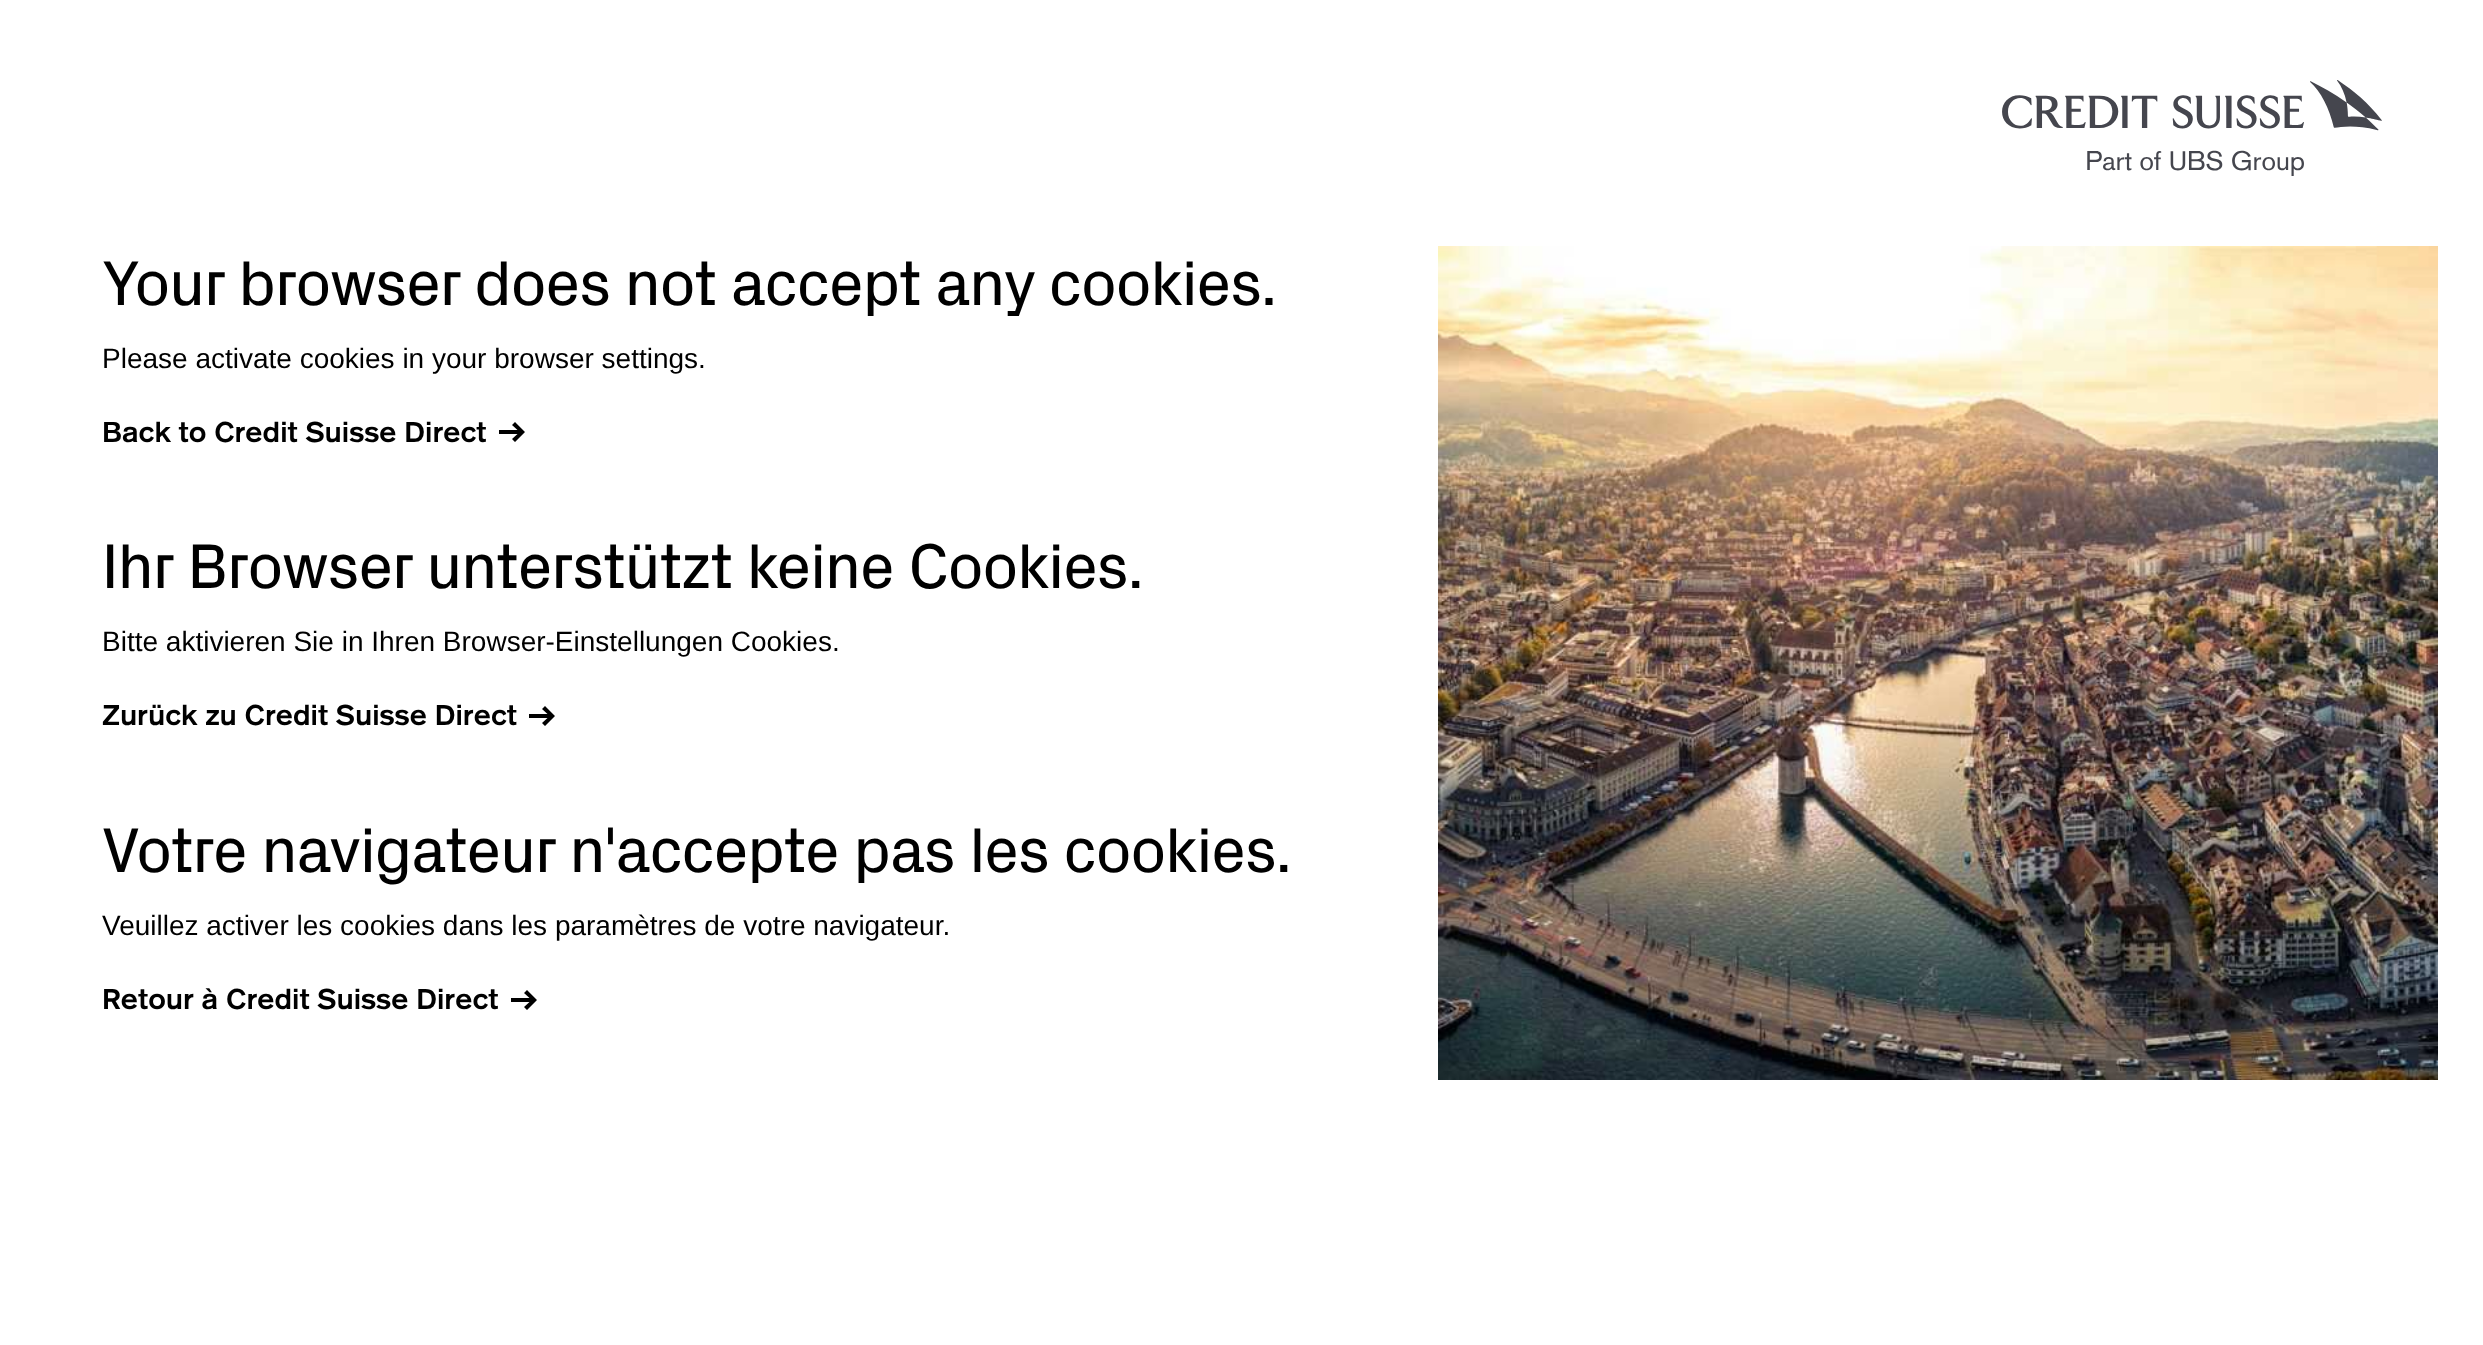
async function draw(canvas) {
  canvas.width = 2483;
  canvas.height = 1345;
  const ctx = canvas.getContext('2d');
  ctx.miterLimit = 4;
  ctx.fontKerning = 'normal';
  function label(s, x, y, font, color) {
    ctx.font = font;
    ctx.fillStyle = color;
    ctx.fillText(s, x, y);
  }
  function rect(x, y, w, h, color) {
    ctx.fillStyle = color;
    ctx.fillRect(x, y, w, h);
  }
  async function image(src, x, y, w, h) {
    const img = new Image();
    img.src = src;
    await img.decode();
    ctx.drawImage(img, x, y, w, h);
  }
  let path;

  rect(0, 0, 2483, 1345, '#fff');
  await image('assets/img1.png', 2002, 80, 380, 96);
  label('Your browser does not accept any cookies.', 102, 305, '64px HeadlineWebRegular', '#000');
  label('Please activate cookies in your browser settings.', 102, 368, '28px Liberation Sans', '#000');
  label('Back to Credit Suisse Direct', 102, 442, 'bold 28px "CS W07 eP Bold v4"', '#000');
  path = new Path2D('M515 422L525 432L515 442L512 439L517.5 434H499V430H517.5L512 425Z');
  ctx.fill(path);
  label('Ihr Browser unterstützt keine Cookies.', 102, 588, '64px HeadlineWebRegular', '#000');
  label('Bitte aktivieren Sie in Ihren Browser-Einstellungen Cookies.', 102, 651, '28px Liberation Sans', '#000');
  label('Zurück zu Credit Suisse Direct', 102, 725, 'bold 28px "CS W07 eP Bold v4"', '#000');
  path = new Path2D('M545 706L555 716L545 726L542 723L547.5 718H529V714H547.5L542 709Z');
  ctx.fill(path);
  label('Votre navigateur n\'accepte pas les cookies.', 102, 872, '64px HeadlineWebRegular', '#000');
  label('Veuillez activer les cookies dans les paramètres de votre navigateur.', 102, 935, '28px Liberation Sans', '#000');
  label('Retour à Credit Suisse Direct', 102, 1009, 'bold 28px "CS W07 eP Bold v4"', '#000');
  path = new Path2D('M527 990L537 1000L527 1010L524 1007L529.5 1002H511V998H529.5L524 993Z');
  ctx.fill(path);
  await image('assets/img2.png', 1438, 246, 1000, 834);
}

draw(document.querySelector('canvas'));
